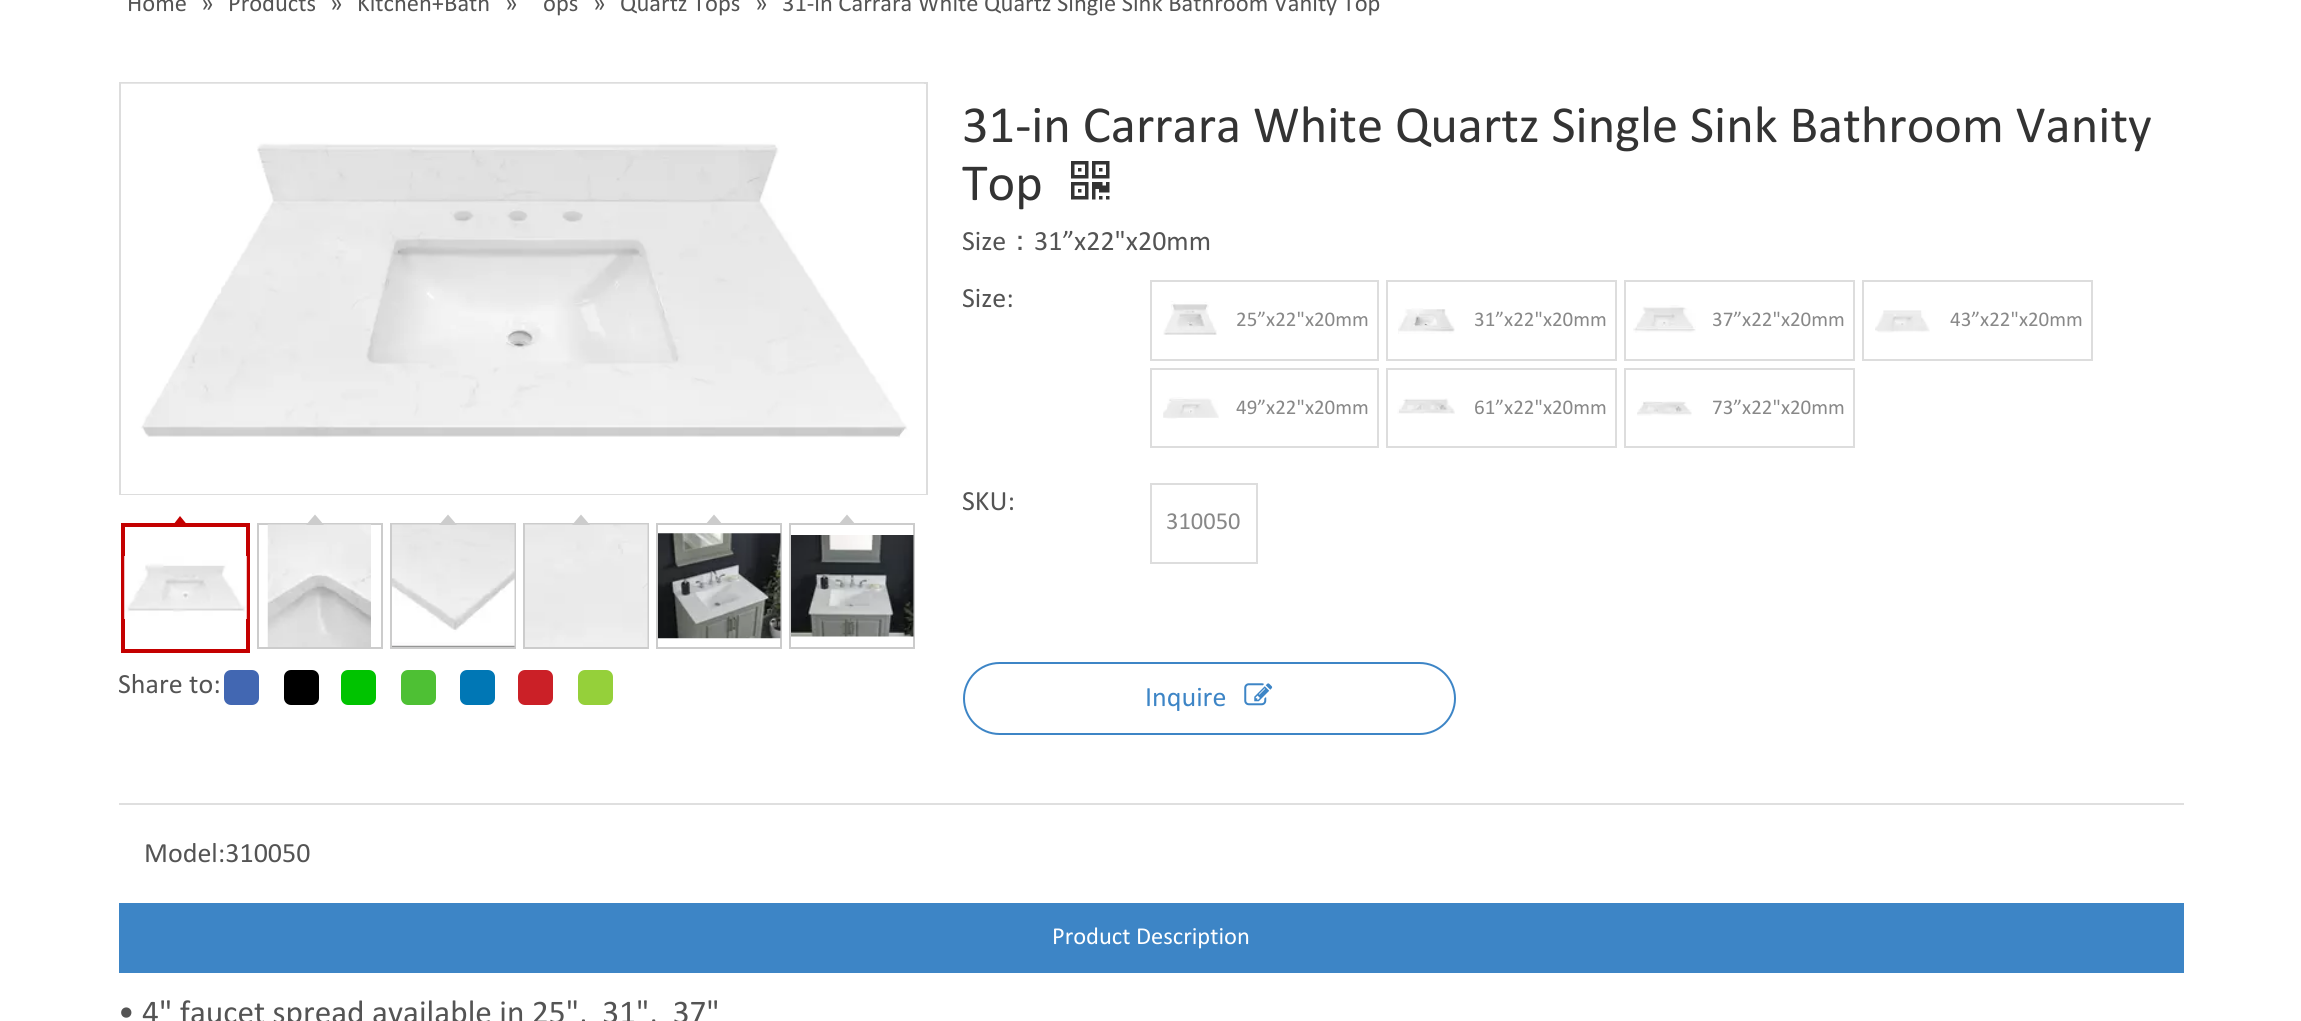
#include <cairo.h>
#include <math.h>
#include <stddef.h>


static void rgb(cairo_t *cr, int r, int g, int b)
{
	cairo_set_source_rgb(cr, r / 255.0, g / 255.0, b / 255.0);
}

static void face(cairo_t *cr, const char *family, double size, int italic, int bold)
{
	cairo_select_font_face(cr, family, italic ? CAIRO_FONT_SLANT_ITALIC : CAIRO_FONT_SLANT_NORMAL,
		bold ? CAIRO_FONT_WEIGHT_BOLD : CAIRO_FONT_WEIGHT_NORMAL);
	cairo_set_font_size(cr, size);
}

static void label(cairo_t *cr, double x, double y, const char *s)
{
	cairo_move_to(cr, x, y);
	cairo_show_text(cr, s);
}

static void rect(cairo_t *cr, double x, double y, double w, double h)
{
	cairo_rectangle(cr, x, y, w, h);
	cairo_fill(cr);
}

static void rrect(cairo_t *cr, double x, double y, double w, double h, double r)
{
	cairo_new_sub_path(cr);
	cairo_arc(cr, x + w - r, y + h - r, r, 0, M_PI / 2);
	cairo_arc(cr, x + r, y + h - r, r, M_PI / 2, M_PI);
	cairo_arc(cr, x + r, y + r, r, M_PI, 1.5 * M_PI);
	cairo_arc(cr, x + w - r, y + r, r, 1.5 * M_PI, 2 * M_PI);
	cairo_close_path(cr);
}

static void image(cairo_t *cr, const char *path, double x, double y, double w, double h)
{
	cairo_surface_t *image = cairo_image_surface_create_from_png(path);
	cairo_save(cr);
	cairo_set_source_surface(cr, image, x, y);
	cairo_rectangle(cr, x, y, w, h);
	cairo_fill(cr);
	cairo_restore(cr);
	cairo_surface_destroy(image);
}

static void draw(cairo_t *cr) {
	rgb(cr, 255, 255, 255);
	cairo_paint(cr);
	face(cr, "Calibri", 24.5, 0, 0);
	rgb(cr, 84, 84, 84);
	label(cr, 127, 11, "Home");
	label(cr, 201, 11, "»");
	label(cr, 228, 11, "Products");
	label(cr, 330, 11, "»");
	label(cr, 357, 11, "Kitchen+Bath");
	label(cr, 505, 11, "»");
	label(cr, 543, 11, "ops");
	label(cr, 593, 11, "»");
	label(cr, 620, 11, "Quartz Tops");
	label(cr, 755, 11, "»");
	label(cr, 782, 11, "31-in Carrara White Quartz Single Sink Bathroom Vanity Top");
	cairo_rectangle(cr, 120, 83, 807, 411);
	rgb(cr, 221, 221, 221);
	cairo_stroke(cr);
	rgb(cr, 255, 255, 255);
	rect(cr, 121, 493, 805, 1);
	image(cr, "image0.png", 121, 83, 803, 355);
	cairo_rectangle(cr, 123, 525, 125, 126);
	rgb(cr, 196, 0, 0);
	cairo_set_line_width(cr, 4);
	cairo_stroke(cr);
	cairo_new_path(cr);
	cairo_move_to(cr, 189, 527);
	cairo_line_to(cr, 171.5, 527);
	cairo_line_to(cr, 180, 516);
	cairo_close_path(cr);
	cairo_fill(cr);
	image(cr, "image1.png", 124, 556, 123, 63);
	cairo_rectangle(cr, 258, 524, 124, 124);
	rgb(cr, 204, 204, 204);
	cairo_set_line_width(cr, 2);
	cairo_stroke(cr);
	image(cr, "image2.png", 267, 524, 104, 123);
	cairo_new_path(cr);
	cairo_move_to(cr, 324, 525);
	cairo_line_to(cr, 306, 525);
	cairo_line_to(cr, 315, 514.5);
	cairo_close_path(cr);
	cairo_fill(cr);
	cairo_rectangle(cr, 391, 524, 124, 124);
	cairo_stroke(cr);
	image(cr, "image3.png", 392, 524, 123, 123);
	cairo_new_path(cr);
	cairo_move_to(cr, 457, 525);
	cairo_line_to(cr, 439, 525);
	cairo_line_to(cr, 448, 514.5);
	cairo_close_path(cr);
	cairo_fill(cr);
	cairo_rectangle(cr, 524, 524, 124, 124);
	cairo_stroke(cr);
	image(cr, "image4.png", 525, 524, 123, 123);
	cairo_new_path(cr);
	cairo_move_to(cr, 590, 525);
	cairo_line_to(cr, 572, 525);
	cairo_line_to(cr, 581, 514.5);
	cairo_close_path(cr);
	cairo_fill(cr);
	cairo_rectangle(cr, 657, 524, 124, 124);
	cairo_stroke(cr);
	cairo_new_path(cr);
	cairo_move_to(cr, 723, 525);
	cairo_line_to(cr, 705, 525);
	cairo_line_to(cr, 714, 514.5);
	cairo_close_path(cr);
	cairo_fill(cr);
	image(cr, "image5.png", 658, 533, 123, 106);
	cairo_rectangle(cr, 790, 524, 124, 124);
	cairo_stroke(cr);
	cairo_new_path(cr);
	cairo_move_to(cr, 856, 525);
	cairo_line_to(cr, 838, 525);
	cairo_line_to(cr, 847, 514.5);
	cairo_close_path(cr);
	cairo_fill(cr);
	image(cr, "image6.png", 791, 535, 123, 102);
	face(cr, "Calibri", 28, 0, 0);
	rgb(cr, 84, 84, 84);
	label(cr, 118, 693, "Share to:");
	rgb(cr, 66, 103, 178);
	rrect(cr, 224, 670, 35, 35, 7);
	cairo_fill(cr);
	rgb(cr, 0, 0, 0);
	rrect(cr, 284, 670, 35, 35, 7);
	cairo_fill(cr);
	rgb(cr, 0, 195, 0);
	rrect(cr, 341, 670, 35, 35, 7);
	cairo_fill(cr);
	rgb(cr, 78, 192, 52);
	rrect(cr, 401, 670, 35, 35, 7);
	cairo_fill(cr);
	rgb(cr, 0, 119, 181);
	rrect(cr, 460, 670, 35, 35, 7);
	cairo_fill(cr);
	rgb(cr, 203, 32, 39);
	rrect(cr, 518, 670, 35, 35, 7);
	cairo_fill(cr);
	rgb(cr, 149, 208, 58);
	rrect(cr, 578, 670, 35, 35, 7);
	cairo_fill(cr);
	face(cr, "Calibri", 52.5, 0, 0);
	rgb(cr, 51, 51, 51);
	label(cr, 962, 142, "31-in Carrara White Quartz Single Sink Bathroom Vanity");
	label(cr, 962, 200, "Top");
	image(cr, "image7.png", 1071, 161, 39, 39);
	face(cr, "Calibri", 28, 0, 0);
	rgb(cr, 84, 84, 84);
	label(cr, 962, 250, "Size");
	face(cr, "WenQuanYi Zen Hei Medium", 28, 0, 0);
	label(cr, 1006, 250, "：");
	face(cr, "Calibri", 28, 0, 0);
	label(cr, 1034, 250, "31”x22\"x20mm");
	label(cr, 962, 307, "Size:");
	cairo_rectangle(cr, 1151, 281, 227, 79);
	rgb(cr, 221, 221, 221);
	cairo_stroke(cr);
	image(cr, "image8.png", 1163, 301, 54, 34);
	face(cr, "Calibri", 21, 0, 0);
	rgb(cr, 136, 136, 136);
	label(cr, 1236, 326, "25”x22\"x20mm");
	cairo_rectangle(cr, 1387, 281, 229, 79);
	rgb(cr, 221, 221, 221);
	cairo_stroke(cr);
	image(cr, "image9.png", 1398, 308, 57, 26);
	rgb(cr, 136, 136, 136);
	label(cr, 1474, 326, "31”x22\"x20mm");
	cairo_rectangle(cr, 1625, 281, 229, 79);
	rgb(cr, 221, 221, 221);
	cairo_stroke(cr);
	image(cr, "image10.png", 1633, 305, 63, 28);
	rgb(cr, 136, 136, 136);
	label(cr, 1712, 326, "37”x22\"x20mm");
	cairo_rectangle(cr, 1863, 281, 229, 79);
	rgb(cr, 221, 221, 221);
	cairo_stroke(cr);
	image(cr, "image11.png", 1875, 310, 55, 23);
	rgb(cr, 136, 136, 136);
	label(cr, 1950, 326, "43”x22\"x20mm");
	cairo_rectangle(cr, 1151, 369, 227, 78);
	rgb(cr, 221, 221, 221);
	cairo_stroke(cr);
	image(cr, "image12.png", 1163, 397, 56, 22);
	rgb(cr, 136, 136, 136);
	label(cr, 1236, 414, "49”x22\"x20mm");
	cairo_rectangle(cr, 1387, 369, 229, 78);
	rgb(cr, 221, 221, 221);
	cairo_stroke(cr);
	image(cr, "image13.png", 1397, 398, 58, 16);
	rgb(cr, 136, 136, 136);
	label(cr, 1474, 414, "61”x22\"x20mm");
	cairo_rectangle(cr, 1625, 369, 229, 78);
	rgb(cr, 221, 221, 221);
	cairo_stroke(cr);
	image(cr, "image14.png", 1637, 401, 55, 15);
	rgb(cr, 136, 136, 136);
	label(cr, 1712, 414, "73”x22\"x20mm");
	face(cr, "Calibri", 28, 0, 0);
	rgb(cr, 84, 84, 84);
	label(cr, 962, 510, "SKU:");
	cairo_rectangle(cr, 1151, 484, 106, 79);
	rgb(cr, 221, 221, 221);
	cairo_stroke(cr);
	face(cr, "Calibri", 24.5, 0, 0);
	rgb(cr, 136, 136, 136);
	label(cr, 1166, 529, "310050");
	rrect(cr, 964, 663, 491, 71, 35.5);
	rgb(cr, 61, 133, 198);
	cairo_stroke(cr);
	face(cr, "Calibri", 28, 0, 0);
	label(cr, 1145, 706, "Inquire");
	image(cr, "image15.png", 1244, 683, 29, 23);
	rgb(cr, 223, 223, 223);
	rect(cr, 119, 803, 2065, 2);
	rgb(cr, 84, 84, 84);
	label(cr, 144, 862, "Model:310050");
	rgb(cr, 61, 133, 198);
	rect(cr, 119, 903, 2065, 70);
	face(cr, "Calibri", 24.5, 0, 0);
	rgb(cr, 255, 255, 255);
	label(cr, 1052, 944, "Product Description");
	face(cr, "Calibri", 33.25, 0, 0);
	rgb(cr, 84, 84, 84);
	label(cr, 118, 1023, "• 4\" faucet spread available in 25\",  31\",  37\"");
}

int main(void) {
	cairo_surface_t *surface = cairo_image_surface_create(CAIRO_FORMAT_RGB24, 2301, 1021);
	cairo_t *cr = cairo_create(surface);
	cairo_font_options_t *options = cairo_font_options_create();
	cairo_font_options_set_hint_metrics(options, CAIRO_HINT_METRICS_OFF);
	cairo_font_options_set_hint_style(options, CAIRO_HINT_STYLE_NONE);
	cairo_set_font_options(cr, options);
	cairo_set_miter_limit(cr, 4);
	draw(cr);
	cairo_surface_write_to_png(surface, "render.png");
	cairo_font_options_destroy(options);
	cairo_destroy(cr);
	cairo_surface_destroy(surface);
	return 0;
}
